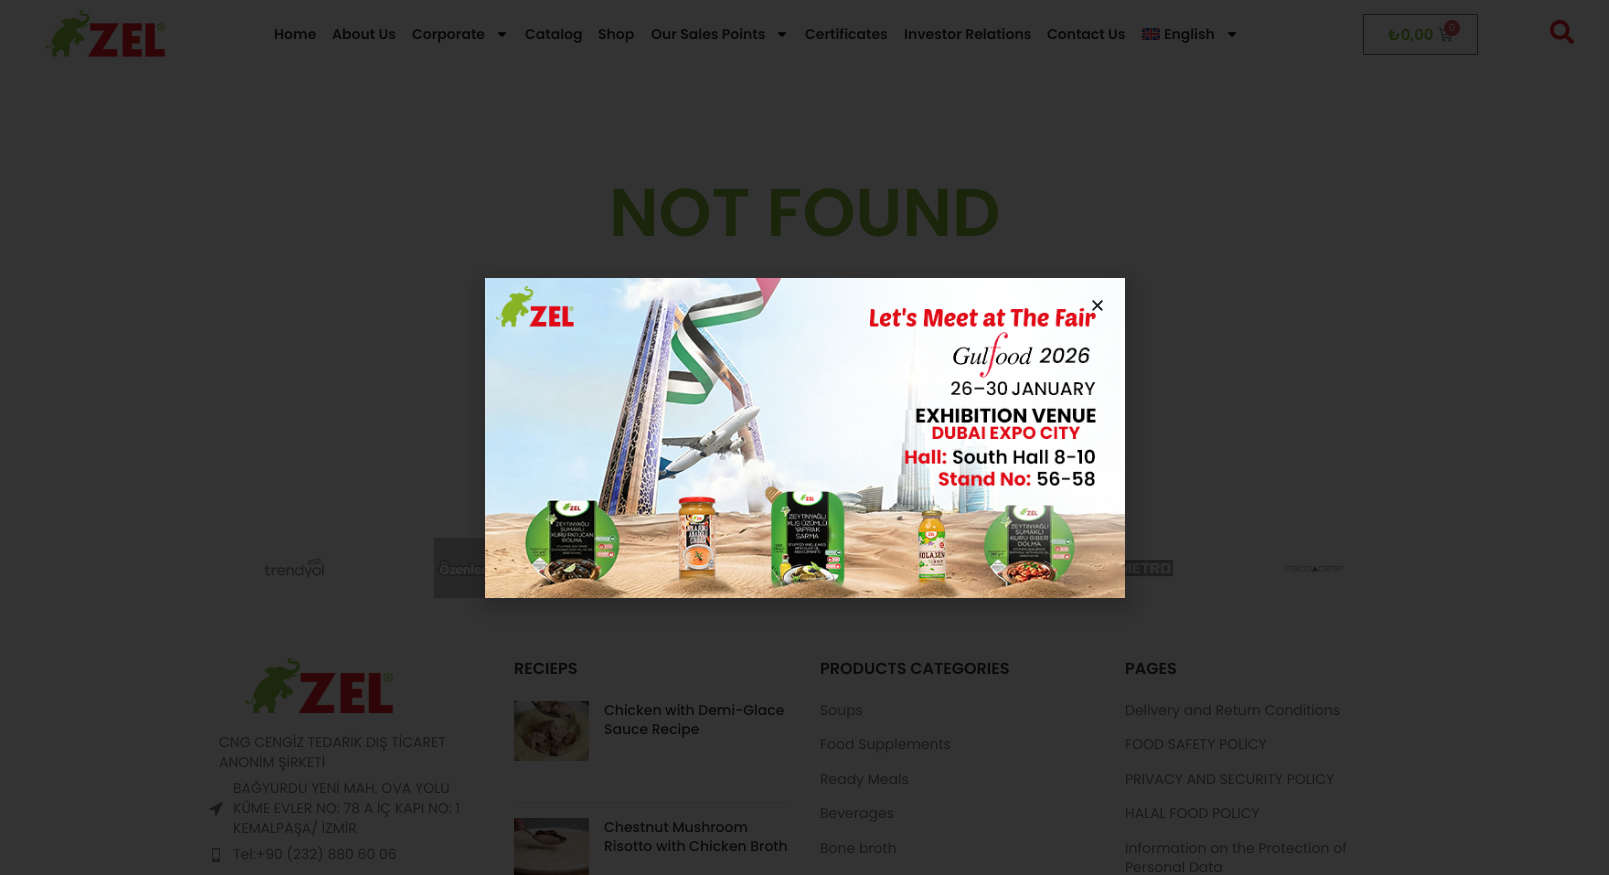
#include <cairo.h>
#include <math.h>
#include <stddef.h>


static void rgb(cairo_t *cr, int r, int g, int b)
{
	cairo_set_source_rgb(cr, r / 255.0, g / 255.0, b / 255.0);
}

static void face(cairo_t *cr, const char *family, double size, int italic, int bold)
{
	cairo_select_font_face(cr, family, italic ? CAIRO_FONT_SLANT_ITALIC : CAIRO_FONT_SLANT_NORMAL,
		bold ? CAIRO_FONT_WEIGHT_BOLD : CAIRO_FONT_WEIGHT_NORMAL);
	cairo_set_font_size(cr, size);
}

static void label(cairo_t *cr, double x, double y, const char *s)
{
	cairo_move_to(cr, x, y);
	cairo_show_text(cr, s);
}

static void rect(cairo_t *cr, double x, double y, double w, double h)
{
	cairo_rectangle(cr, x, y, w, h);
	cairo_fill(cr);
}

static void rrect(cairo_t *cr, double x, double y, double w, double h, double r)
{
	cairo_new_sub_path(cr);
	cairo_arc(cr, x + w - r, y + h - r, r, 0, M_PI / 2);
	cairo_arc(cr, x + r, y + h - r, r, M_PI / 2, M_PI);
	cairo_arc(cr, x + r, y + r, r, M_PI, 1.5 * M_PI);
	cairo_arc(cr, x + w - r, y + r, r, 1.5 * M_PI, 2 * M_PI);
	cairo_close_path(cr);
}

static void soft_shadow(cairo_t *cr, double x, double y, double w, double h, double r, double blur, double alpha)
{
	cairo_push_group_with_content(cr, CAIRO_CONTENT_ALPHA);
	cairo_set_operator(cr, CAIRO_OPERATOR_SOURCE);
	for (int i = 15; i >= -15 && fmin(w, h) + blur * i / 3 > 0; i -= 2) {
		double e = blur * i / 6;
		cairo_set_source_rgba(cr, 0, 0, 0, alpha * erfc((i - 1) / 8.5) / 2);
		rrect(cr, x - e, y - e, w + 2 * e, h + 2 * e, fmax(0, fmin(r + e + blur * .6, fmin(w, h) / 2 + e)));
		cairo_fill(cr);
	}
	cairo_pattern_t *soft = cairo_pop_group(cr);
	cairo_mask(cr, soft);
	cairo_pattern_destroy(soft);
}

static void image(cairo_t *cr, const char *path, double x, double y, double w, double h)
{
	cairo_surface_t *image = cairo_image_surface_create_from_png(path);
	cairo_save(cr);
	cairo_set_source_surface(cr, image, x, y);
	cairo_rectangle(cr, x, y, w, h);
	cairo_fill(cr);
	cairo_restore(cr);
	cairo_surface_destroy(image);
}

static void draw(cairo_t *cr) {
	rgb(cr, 51, 51, 51);
	cairo_paint(cr);
	image(cr, "image0.png", 44, 8, 122, 53);
	face(cr, "Poppins SemiBold", 14, 0, 0);
	rgb(cr, 10, 10, 10);
	label(cr, 274, 39, "Home");
	label(cr, 332, 39, "About Us");
	label(cr, 412, 39, "Corporate");
	image(cr, "image1.png", 498, 32, 8, 5);
	label(cr, 525, 39, "Catalog");
	label(cr, 598, 39, "Shop");
	label(cr, 651, 39, "Our Sales Points");
	image(cr, "image1.png", 778, 32, 8, 5);
	label(cr, 805, 39, "Certificates");
	label(cr, 904, 39, "Investor Relations");
	label(cr, 1047, 39, "Contact Us");
	image(cr, "image2.png", 1142, 28, 18, 12);
	label(cr, 1164, 39, "English");
	image(cr, "image1.png", 1228, 32, 8, 5);
	cairo_rectangle(cr, 1363.5, 14.5, 114, 40);
	rgb(cr, 21, 23, 25);
	cairo_set_line_width(cr, 1);
	cairo_stroke(cr);
	image(cr, "image3.png", 1438, 27, 14, 15);
	rgb(cr, 43, 17, 16);
	cairo_arc(cr, 1452, 28, 8, 0, 2 * M_PI);
	cairo_fill(cr);
	face(cr, "Poppins", 10, 0, 0);
	rgb(cr, 51, 51, 51);
	label(cr, 1449, 31, "0");
	face(cr, "Poppins SemiBold", 15, 0, 0);
	rgb(cr, 26, 37, 11);
	label(cr, 1388, 40, "₺0,00");
	image(cr, "image4.png", 1550, 20, 24, 24);
	face(cr, "Poppins SemiBold", 67.5, 0, 0);
	label(cr, 609, 236, "NOT FOUND");
	image(cr, "image5.png", 264, 558, 60, 20);
	image(cr, "image6.png", 434, 538, 51, 60);
	image(cr, "image7.png", 1125, 560, 48, 17);
	image(cr, "image8.png", 1285, 564, 60, 8);
	image(cr, "image9.png", 244, 658, 150, 55);
	face(cr, "Poppins", 14, 0, 0);
	rgb(cr, 24, 24, 24);
	label(cr, 219, 747, "CNG CENGİZ TEDARİK DIŞ TİCARET");
	label(cr, 219, 767, "ANONİM ŞİRKETİ");
	image(cr, "image10.png", 209, 802, 14, 14);
	label(cr, 233, 793, "BAĞYURDU YENİ MAH. OVA YOLU");
	label(cr, 233, 813, "KÜME EVLER NO: 78 A İÇ KAPI NO: 1");
	label(cr, 233, 833, "KEMALPAŞA/ İZMİR");
	image(cr, "image11.png", 212, 848, 8, 14);
	label(cr, 233, 859, "Tel:+90 (232) 880 60 06");
	face(cr, "Poppins SemiBold", 16, 0, 0);
	rgb(cr, 10, 10, 10);
	label(cr, 514, 674, "RECIEPS");
	rgb(cr, 46, 46, 46);
	rect(cr, 514, 802, 276, 1);
	image(cr, "image12.png", 514, 701, 75, 60);
	face(cr, "Poppins Medium", 14, 0, 0);
	rgb(cr, 10, 10, 10);
	label(cr, 604, 715, "Chicken with Demi-Glace");
	label(cr, 604, 734, "Sauce Recipe");
	image(cr, "image13.png", 514, 818, 75, 57);
	label(cr, 604, 832, "Chestnut Mushroom");
	label(cr, 604, 851, "Risotto with Chicken Broth");
	face(cr, "Poppins SemiBold", 16, 0, 0);
	label(cr, 820, 674, "PRODUCTS CATEGORIES");
	face(cr, "Poppins", 14, 0, 0);
	rgb(cr, 24, 24, 24);
	label(cr, 820, 715, "Soups");
	label(cr, 820, 749, "Food Supplements");
	label(cr, 820, 784, "Ready Meals");
	label(cr, 820, 818, "Beverages");
	label(cr, 820, 853, "Bone broth");
	face(cr, "Poppins SemiBold", 16, 0, 0);
	rgb(cr, 10, 10, 10);
	label(cr, 1125, 674, "PAGES");
	face(cr, "Poppins", 14, 0, 0);
	rgb(cr, 24, 24, 24);
	label(cr, 1125, 715, "Delivery and Return Conditions");
	label(cr, 1125, 749, "FOOD SAFETY POLICY");
	label(cr, 1125, 784, "PRIVACY AND SECURITY POLICY");
	label(cr, 1125, 818, "HALAL FOOD POLICY");
	label(cr, 1125, 853, "Information on the Protection of");
	label(cr, 1125, 872, "Personal Data");
	rgb(cr, 0, 0, 0);
	soft_shadow(cr, 484, 283, 646, 326, 0, 11.5, 0.2);
	image(cr, "image14.png", 485, 278, 640, 320);
	image(cr, "image15.png", 1092, 300, 11, 11);
}

int main(void) {
	cairo_surface_t *surface = cairo_image_surface_create(CAIRO_FORMAT_RGB24, 1609, 875);
	cairo_t *cr = cairo_create(surface);
	cairo_font_options_t *options = cairo_font_options_create();
	cairo_font_options_set_hint_metrics(options, CAIRO_HINT_METRICS_OFF);
	cairo_font_options_set_hint_style(options, CAIRO_HINT_STYLE_NONE);
	cairo_set_font_options(cr, options);
	cairo_set_miter_limit(cr, 4);
	draw(cr);
	cairo_surface_write_to_png(surface, "render.png");
	cairo_font_options_destroy(options);
	cairo_destroy(cr);
	cairo_surface_destroy(surface);
	return 0;
}
